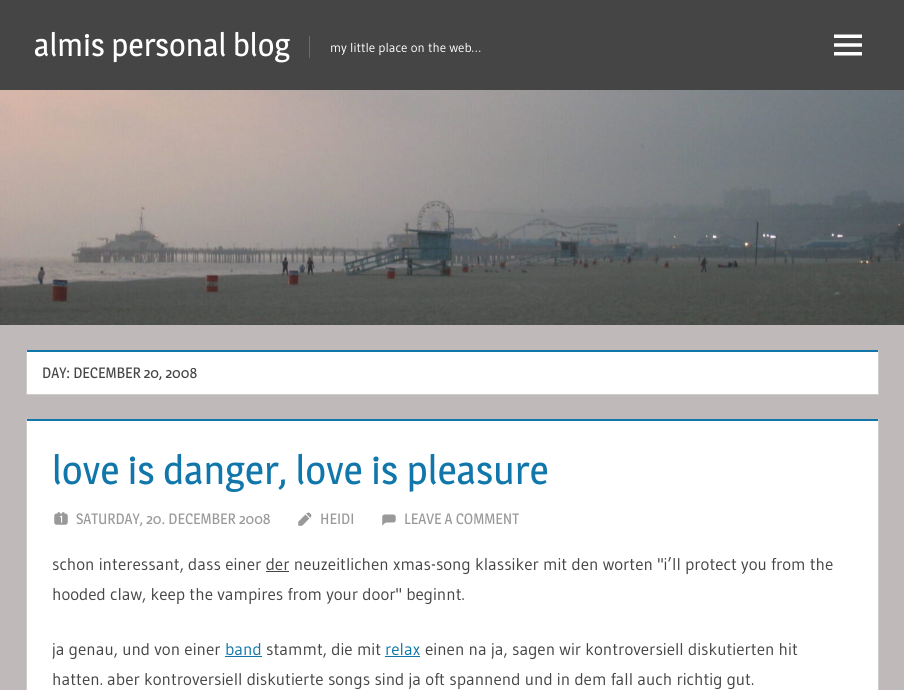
#include <cairo.h>
#include <math.h>
#include <stddef.h>


static void rgb(cairo_t *cr, int r, int g, int b)
{
	cairo_set_source_rgb(cr, r / 255.0, g / 255.0, b / 255.0);
}

static void face(cairo_t *cr, const char *family, double size, int italic, int bold)
{
	cairo_select_font_face(cr, family, italic ? CAIRO_FONT_SLANT_ITALIC : CAIRO_FONT_SLANT_NORMAL,
		bold ? CAIRO_FONT_WEIGHT_BOLD : CAIRO_FONT_WEIGHT_NORMAL);
	cairo_set_font_size(cr, size);
}

static void label(cairo_t *cr, double x, double y, const char *s)
{
	cairo_move_to(cr, x, y);
	cairo_show_text(cr, s);
}

static void rect(cairo_t *cr, double x, double y, double w, double h)
{
	cairo_rectangle(cr, x, y, w, h);
	cairo_fill(cr);
}

static void image(cairo_t *cr, const char *path, double x, double y, double w, double h)
{
	cairo_surface_t *image = cairo_image_surface_create_from_png(path);
	cairo_save(cr);
	cairo_set_source_surface(cr, image, x, y);
	cairo_rectangle(cr, x, y, w, h);
	cairo_fill(cr);
	cairo_restore(cr);
	cairo_surface_destroy(image);
}

static void draw(cairo_t *cr) {
	rgb(cr, 191, 186, 185);
	cairo_paint(cr);
	rgb(cr, 69, 69, 69);
	rect(cr, 0, 0, 904, 90);
	face(cr, "Magra", 32, 0, 0);
	rgb(cr, 255, 255, 255);
	label(cr, 34, 56, "almis personal blog");
	rgb(cr, 106, 106, 106);
	rect(cr, 309, 36, 1, 22);
	face(cr, "Gudea", 13, 0, 0);
	rgb(cr, 255, 255, 255);
	label(cr, 330, 52, "my little place on the web…");
	image(cr, "image0.png", 834, 34, 28, 22);
	image(cr, "image1.png", 0, 90, 904, 235);
	rect(cr, 26, 350, 853, 45);
	rgb(cr, 204, 204, 204);
	cairo_new_path(cr);
	cairo_move_to(cr, 879, 350);
	cairo_line_to(cr, 879, 395);
	cairo_line_to(cr, 878, 394);
	cairo_line_to(cr, 878, 350);
	cairo_close_path(cr);
	cairo_fill(cr);
	cairo_set_source_rgba(cr, 0, 0, 0, 0.2);
	cairo_new_path(cr);
	cairo_move_to(cr, 879, 395);
	cairo_line_to(cr, 26, 395);
	cairo_line_to(cr, 27, 394);
	cairo_line_to(cr, 878, 394);
	cairo_close_path(cr);
	cairo_fill(cr);
	cairo_new_path(cr);
	cairo_move_to(cr, 26, 395);
	cairo_line_to(cr, 26, 350);
	cairo_line_to(cr, 27, 350);
	cairo_line_to(cr, 27, 394);
	cairo_close_path(cr);
	cairo_fill(cr);
	rgb(cr, 17, 119, 170);
	rect(cr, 27, 350, 851, 2);
	face(cr, "Magra", 15, 0, 0);
	rgb(cr, 69, 69, 69);
	label(cr, 42, 378, "DAY: DECEMBER 20, 2008");
	rgb(cr, 255, 255, 255);
	rect(cr, 27, 421, 851, 269);
	rgb(cr, 17, 119, 170);
	rect(cr, 27, 419, 851, 2);
	rgb(cr, 204, 204, 204);
	cairo_new_path(cr);
	cairo_move_to(cr, 879, 419);
	cairo_line_to(cr, 879, 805);
	cairo_line_to(cr, 878, 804);
	cairo_line_to(cr, 878, 419);
	cairo_close_path(cr);
	cairo_fill(cr);
	cairo_new_path(cr);
	cairo_move_to(cr, 26, 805);
	cairo_line_to(cr, 26, 419);
	cairo_line_to(cr, 27, 419);
	cairo_line_to(cr, 27, 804);
	cairo_close_path(cr);
	cairo_fill(cr);
	face(cr, "Magra", 40, 0, 0);
	rgb(cr, 17, 119, 170);
	label(cr, 52, 484, "love is danger, love is pleasure");
	image(cr, "image2.png", 54, 512, 14, 13);
	face(cr, "Magra", 15, 0, 0);
	rgb(cr, 153, 153, 153);
	label(cr, 76, 524, "SATURDAY, 20. DECEMBER 2008");
	image(cr, "image3.png", 298, 512, 14, 14);
	label(cr, 320, 524, "HEIDI");
	image(cr, "image4.png", 382, 514, 14, 12);
	label(cr, 404, 524, "LEAVE A COMMENT");
	face(cr, "Gudea", 17, 0, 0);
	rgb(cr, 69, 69, 69);
	label(cr, 52, 570, "schon interessant, dass einer der neuzeitlichen xmas-song klassiker mit den worten \"i’ll protect you from the");
	rect(cr, 266, 571, 23, 1);
	label(cr, 52, 600, "hooded claw, keep the vampires from your door\" beginnt.");
	label(cr, 52, 655, "ja genau, und von einer");
	rgb(cr, 17, 119, 170);
	label(cr, 225, 655, "band");
	rect(cr, 225, 656, 37, 1);
	rgb(cr, 69, 69, 69);
	label(cr, 266, 655, "stammt, die mit");
	rgb(cr, 17, 119, 170);
	label(cr, 385, 655, "relax");
	rect(cr, 385, 656, 35, 1);
	rgb(cr, 69, 69, 69);
	label(cr, 425, 655, "einen na ja, sagen wir kontroversiell diskutierten hit");
	label(cr, 52, 685, "hatten. aber kontroversiell diskutierte songs sind ja oft spannend und in dem fall auch richtig gut.");
}

int main(void) {
	cairo_surface_t *surface = cairo_image_surface_create(CAIRO_FORMAT_RGB24, 904, 690);
	cairo_t *cr = cairo_create(surface);
	cairo_font_options_t *options = cairo_font_options_create();
	cairo_font_options_set_hint_metrics(options, CAIRO_HINT_METRICS_OFF);
	cairo_font_options_set_hint_style(options, CAIRO_HINT_STYLE_NONE);
	cairo_set_font_options(cr, options);
	cairo_set_miter_limit(cr, 4);
	draw(cr);
	cairo_surface_write_to_png(surface, "render.png");
	cairo_font_options_destroy(options);
	cairo_destroy(cr);
	cairo_surface_destroy(surface);
	return 0;
}
